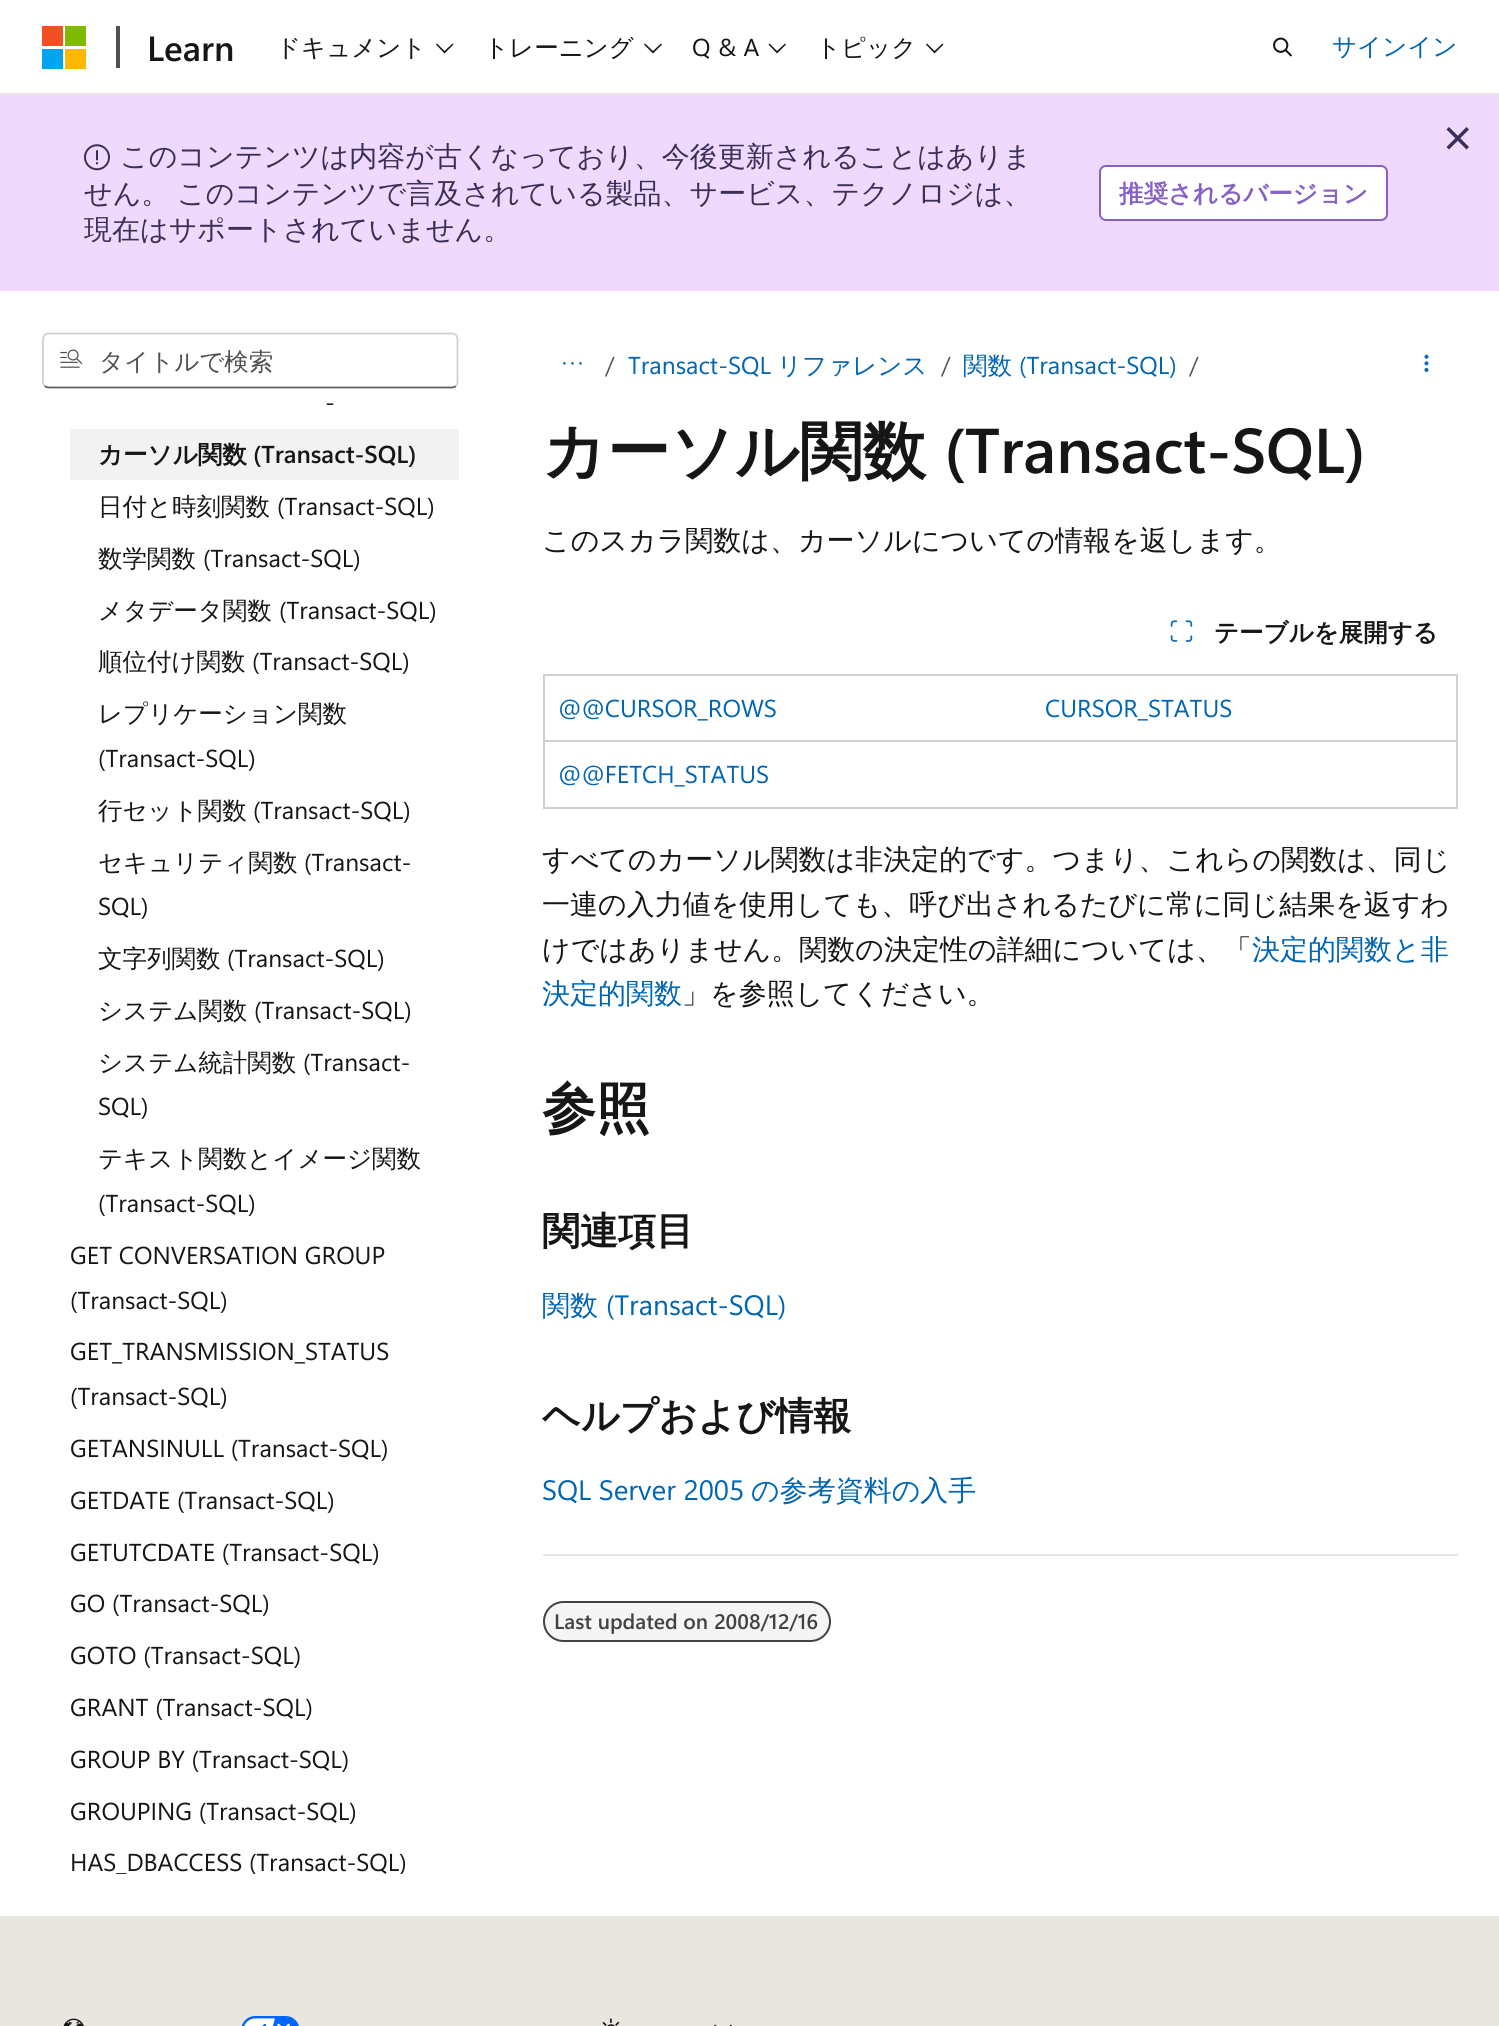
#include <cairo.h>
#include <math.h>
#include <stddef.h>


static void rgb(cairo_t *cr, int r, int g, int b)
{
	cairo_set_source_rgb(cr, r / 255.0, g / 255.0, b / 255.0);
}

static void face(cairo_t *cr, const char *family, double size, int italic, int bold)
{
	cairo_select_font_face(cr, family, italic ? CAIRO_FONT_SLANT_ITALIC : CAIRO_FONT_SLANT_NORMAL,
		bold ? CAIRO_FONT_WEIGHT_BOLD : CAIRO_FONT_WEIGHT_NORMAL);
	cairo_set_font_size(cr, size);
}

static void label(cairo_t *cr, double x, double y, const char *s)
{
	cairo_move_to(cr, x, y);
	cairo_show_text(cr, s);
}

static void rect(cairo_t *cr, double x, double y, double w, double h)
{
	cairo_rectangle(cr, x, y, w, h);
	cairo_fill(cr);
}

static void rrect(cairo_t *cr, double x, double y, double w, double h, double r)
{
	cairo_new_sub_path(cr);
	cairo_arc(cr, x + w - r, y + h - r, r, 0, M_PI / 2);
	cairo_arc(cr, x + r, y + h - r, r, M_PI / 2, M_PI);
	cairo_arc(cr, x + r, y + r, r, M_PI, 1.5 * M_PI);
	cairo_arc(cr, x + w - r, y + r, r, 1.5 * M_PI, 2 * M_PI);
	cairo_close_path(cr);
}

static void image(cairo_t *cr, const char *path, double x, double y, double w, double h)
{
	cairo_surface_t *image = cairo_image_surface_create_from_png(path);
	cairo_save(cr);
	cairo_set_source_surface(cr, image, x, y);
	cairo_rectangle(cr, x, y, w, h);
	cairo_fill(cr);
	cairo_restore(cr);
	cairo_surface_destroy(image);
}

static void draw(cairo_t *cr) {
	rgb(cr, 255, 255, 255);
	cairo_paint(cr);
	rgb(cr, 230, 230, 230);
	rect(cr, 0, 93, 1499, 2);
	rgb(cr, 242, 80, 34);
	rect(cr, 42, 26, 21, 20);
	rgb(cr, 127, 186, 0);
	rect(cr, 65, 26, 21, 20);
	rgb(cr, 0, 164, 239);
	rect(cr, 42, 49, 21, 20);
	rgb(cr, 255, 185, 0);
	rect(cr, 65, 49, 21, 20);
	rgb(cr, 80, 80, 80);
	rect(cr, 116, 26, 4, 42);
	face(cr, "Segoe UI SemiBold", 35, 0, 0);
	rgb(cr, 22, 22, 22);
	label(cr, 147, 61, "Learn");
	face(cr, "WenQuanYi Zen Hei Medium", 24.5, 0, 0);
	label(cr, 276, 56, "ドキュメント");
	cairo_new_path(cr);
	cairo_move_to(cr, 444.5, 53.5);
	cairo_line_to(cr, 436, 44.5);
	cairo_line_to(cr, 437, 43.5);
	cairo_line_to(cr, 444.5, 51);
	cairo_line_to(cr, 452.5, 43.5);
	cairo_line_to(cr, 453.5, 44.5);
	cairo_close_path(cr);
	cairo_fill(cr);
	label(cr, 484, 56, "トレーニング");
	cairo_new_path(cr);
	cairo_move_to(cr, 653, 53.5);
	cairo_line_to(cr, 644, 44.5);
	cairo_line_to(cr, 645, 43.5);
	cairo_line_to(cr, 653, 51);
	cairo_line_to(cr, 661, 43.5);
	cairo_line_to(cr, 662, 44.5);
	cairo_close_path(cr);
	cairo_fill(cr);
	face(cr, "Segoe UI", 24.5, 0, 0);
	label(cr, 692, 56, "Q & A");
	cairo_new_path(cr);
	cairo_move_to(cr, 777, 53.5);
	cairo_line_to(cr, 768.5, 44.5);
	cairo_line_to(cr, 769.5, 43.5);
	cairo_line_to(cr, 777, 51);
	cairo_line_to(cr, 785, 43.5);
	cairo_line_to(cr, 786, 44.5);
	cairo_close_path(cr);
	cairo_fill(cr);
	face(cr, "WenQuanYi Zen Hei Medium", 24.5, 0, 0);
	label(cr, 816, 56, "トピック");
	cairo_new_path(cr);
	cairo_move_to(cr, 934.5, 53.5);
	cairo_line_to(cr, 926, 44.5);
	cairo_line_to(cr, 927, 43.5);
	cairo_line_to(cr, 934.5, 51);
	cairo_line_to(cr, 942.5, 43.5);
	cairo_line_to(cr, 943.5, 44.5);
	cairo_close_path(cr);
	cairo_fill(cr);
	image(cr, "image0.png", 1273, 37, 19, 20);
	rgb(cr, 0, 101, 179);
	label(cr, 1332, 55, "サインイン");
	rgb(cr, 239, 217, 253);
	rect(cr, 0, 95, 1499, 196);
	rgb(cr, 59, 46, 88);
	cairo_new_path(cr);
	cairo_move_to(cr, 1449, 127);
	cairo_line_to(cr, 1469, 147);
	cairo_line_to(cr, 1466.5, 149.5);
	cairo_line_to(cr, 1446.5, 129.5);
	cairo_close_path(cr);
	cairo_fill(cr);
	cairo_new_path(cr);
	cairo_move_to(cr, 1466.5, 127);
	cairo_line_to(cr, 1469, 129.5);
	cairo_line_to(cr, 1449, 149.5);
	cairo_line_to(cr, 1446.5, 147);
	cairo_close_path(cr);
	cairo_fill(cr);
	image(cr, "image1.png", 84, 144, 26, 27);
	face(cr, "WenQuanYi Zen Hei Medium", 28, 0, 0);
	label(cr, 120, 166, "このコンテンツは内容が古くなっており、今後更新されることはありま");
	label(cr, 84, 203, "せん。");
	label(cr, 177, 203, "このコンテンツで言及されている製品、サービス、テクノロジは、");
	label(cr, 84, 239, "現在はサポートされていません。");
	rgb(cr, 255, 255, 255);
	rrect(cr, 1100, 166, 287, 54, 6);
	cairo_fill_preserve(cr);
	rgb(cr, 134, 97, 197);
	cairo_stroke(cr);
	face(cr, "WenQuanYi Zen Hei", 24.5, 0, 1);
	label(cr, 1119, 202, "推奨されるバージョン");
	cairo_new_path(cr);
	cairo_move_to(cr, 456, 386);
	cairo_curve_to(cr, 454.5, 387, 453, 387.5, 451.5, 387.5);
	cairo_line_to(cr, 49, 387.5);
	cairo_curve_to(cr, 47.5, 387.5, 46, 387, 44.5, 386);
	rgb(cr, 97, 97, 97);
	cairo_set_line_width(cr, 1.8);
	cairo_stroke(cr);
	cairo_new_path(cr);
	cairo_move_to(cr, 44.5, 386);
	cairo_curve_to(cr, 43.5, 384.5, 43, 383, 43, 381.5);
	cairo_line_to(cr, 43, 339.5);
	cairo_curve_to(cr, 43, 338, 43.5, 336.5, 44.5, 335);
	cairo_curve_to(cr, 46, 334, 47.5, 333.5, 49, 333.5);
	cairo_line_to(cr, 451.5, 333.5);
	cairo_curve_to(cr, 453, 333.5, 454.5, 334, 456, 335);
	cairo_curve_to(cr, 457, 336.5, 457.5, 338, 457.5, 339.5);
	cairo_line_to(cr, 457.5, 381.5);
	cairo_curve_to(cr, 457.5, 383, 457, 384.5, 456, 386);
	rgb(cr, 209, 209, 209);
	cairo_stroke(cr);
	image(cr, "image2.png", 60, 349, 23, 19);
	face(cr, "WenQuanYi Zen Hei Medium", 24.5, 0, 0);
	rgb(cr, 80, 80, 80);
	label(cr, 99, 370, "タイトルで検索");
	face(cr, "Segoe UI", 24.5, 0, 0);
	rgb(cr, 22, 22, 22);
	label(cr, 325, 411, "-");
	rgb(cr, 242, 242, 242);
	rect(cr, 70, 429, 389, 51);
	face(cr, "WenQuanYi Zen Hei", 24.5, 0, 1);
	rgb(cr, 22, 22, 22);
	label(cr, 98, 463, "カーソル関数");
	face(cr, "Segoe UI SemiBold", 24.5, 0, 0);
	label(cr, 253, 463, "(Transact-SQL)");
	face(cr, "WenQuanYi Zen Hei Medium", 24.5, 0, 0);
	label(cr, 98, 515, "日付と時刻関数");
	face(cr, "Segoe UI", 24.5, 0, 0);
	label(cr, 277, 515, "(Transact-SQL)");
	face(cr, "WenQuanYi Zen Hei Medium", 24.5, 0, 0);
	label(cr, 98, 567, "数学関数");
	face(cr, "Segoe UI", 24.5, 0, 0);
	label(cr, 203, 567, "(Transact-SQL)");
	face(cr, "WenQuanYi Zen Hei Medium", 24.5, 0, 0);
	label(cr, 98, 619, "メタデータ関数");
	face(cr, "Segoe UI", 24.5, 0, 0);
	label(cr, 279, 619, "(Transact-SQL)");
	face(cr, "WenQuanYi Zen Hei Medium", 24.5, 0, 0);
	label(cr, 98, 670, "順位付け関数");
	face(cr, "Segoe UI", 24.5, 0, 0);
	label(cr, 252, 670, "(Transact-SQL)");
	face(cr, "WenQuanYi Zen Hei Medium", 24.5, 0, 0);
	label(cr, 98, 722, "レプリケーション関数");
	face(cr, "Segoe UI", 24.5, 0, 0);
	label(cr, 98, 767, "(Transact-SQL)");
	face(cr, "WenQuanYi Zen Hei Medium", 24.5, 0, 0);
	label(cr, 98, 819, "行セット関数");
	face(cr, "Segoe UI", 24.5, 0, 0);
	label(cr, 253, 819, "(Transact-SQL)");
	face(cr, "WenQuanYi Zen Hei Medium", 24.5, 0, 0);
	label(cr, 98, 871, "セキュリティ関数");
	face(cr, "Segoe UI", 24.5, 0, 0);
	label(cr, 304, 871, "(Transact-");
	label(cr, 98, 915, "SQL)");
	face(cr, "WenQuanYi Zen Hei Medium", 24.5, 0, 0);
	label(cr, 98, 967, "文字列関数");
	face(cr, "Segoe UI", 24.5, 0, 0);
	label(cr, 227, 967, "(Transact-SQL)");
	face(cr, "WenQuanYi Zen Hei Medium", 24.5, 0, 0);
	label(cr, 98, 1019, "システム関数");
	face(cr, "Segoe UI", 24.5, 0, 0);
	label(cr, 254, 1019, "(Transact-SQL)");
	face(cr, "WenQuanYi Zen Hei Medium", 24.5, 0, 0);
	label(cr, 98, 1071, "システム統計関数");
	face(cr, "Segoe UI", 24.5, 0, 0);
	label(cr, 303, 1071, "(Transact-");
	label(cr, 98, 1115, "SQL)");
	face(cr, "WenQuanYi Zen Hei Medium", 24.5, 0, 0);
	label(cr, 98, 1167, "テキスト関数とイメージ関数");
	face(cr, "Segoe UI", 24.5, 0, 0);
	label(cr, 98, 1212, "(Transact-SQL)");
	label(cr, 70, 1264, "GET CONVERSATION GROUP");
	label(cr, 70, 1309, "(Transact-SQL)");
	label(cr, 70, 1360, "GET_TRANSMISSION_STATUS");
	label(cr, 70, 1405, "(Transact-SQL)");
	label(cr, 70, 1457, "GETANSINULL (Transact-SQL)");
	label(cr, 70, 1509, "GETDATE (Transact-SQL)");
	label(cr, 70, 1561, "GETUTCDATE (Transact-SQL)");
	label(cr, 70, 1612, "GO (Transact-SQL)");
	label(cr, 70, 1664, "GOTO (Transact-SQL)");
	label(cr, 70, 1716, "GRANT (Transact-SQL)");
	label(cr, 70, 1768, "GROUP BY (Transact-SQL)");
	label(cr, 70, 1820, "GROUPING (Transact-SQL)");
	cairo_save(cr);
	cairo_rectangle(cr, 42, 403, 417, 1471);
	cairo_clip(cr);
	label(cr, 70, 1871, "HAS_DBACCESS (Transact-SQL)");
	cairo_restore(cr);
	image(cr, "image3.png", 563, 362, 19, 3);
	rgb(cr, 80, 80, 80);
	label(cr, 605, 374, "/");
	rgb(cr, 0, 101, 179);
	label(cr, 628, 374, "Transact-SQL");
	face(cr, "WenQuanYi Zen Hei Medium", 24.5, 0, 0);
	label(cr, 777, 374, "リファレンス");
	face(cr, "Segoe UI", 24.5, 0, 0);
	rgb(cr, 80, 80, 80);
	label(cr, 941, 374, "/");
	face(cr, "WenQuanYi Zen Hei Medium", 24.5, 0, 0);
	rgb(cr, 0, 101, 179);
	label(cr, 963, 374, "関数");
	face(cr, "Segoe UI", 24.5, 0, 0);
	label(cr, 1019, 374, "(Transact-SQL)");
	rgb(cr, 80, 80, 80);
	label(cr, 1189, 374, "/");
	image(cr, "image4.png", 1424, 354, 5, 18);
	face(cr, "WenQuanYi Zen Hei", 63.25, 0, 1);
	rgb(cr, 22, 22, 22);
	label(cr, 542, 473, "カーソル関数");
	face(cr, "Segoe UI SemiBold", 63.25, 0, 0);
	label(cr, 944, 473, "(Transact-SQL)");
	face(cr, "WenQuanYi Zen Hei Medium", 28, 0, 0);
	label(cr, 542, 550, "このスカラ関数は、カーソルについての情報を返します。");
	image(cr, "image5.png", 1170, 620, 23, 22);
	face(cr, "WenQuanYi Zen Hei", 24.5, 0, 1);
	label(cr, 1214, 641, "テーブルを展開する");
	rgb(cr, 209, 209, 209);
	rect(cr, 543, 674, 915, 2);
	rect(cr, 1456, 674, 2, 135);
	rect(cr, 543, 807, 915, 2);
	rect(cr, 543, 674, 2, 135);
	face(cr, "Segoe UI", 24.5, 0, 0);
	rgb(cr, 0, 101, 179);
	label(cr, 558, 717, "@@CURSOR_ROWS");
	label(cr, 1045, 717, "CURSOR_STATUS");
	rgb(cr, 209, 209, 209);
	rect(cr, 543, 740, 915, 2);
	rgb(cr, 0, 101, 179);
	label(cr, 558, 783, "@@FETCH_STATUS");
	face(cr, "WenQuanYi Zen Hei Medium", 28, 0, 0);
	rgb(cr, 22, 22, 22);
	label(cr, 542, 869, "すべてのカーソル関数は非決定的です。つまり、これらの関数は、同じ");
	label(cr, 542, 914, "一連の入力値を使用しても、呼び出されるたびに常に同じ結果を返すわ");
	label(cr, 542, 959, "けではありません。関数の決定性の詳細については、「");
	rgb(cr, 0, 101, 179);
	label(cr, 1252, 959, "決定的関数と非");
	label(cr, 542, 1003, "決定的関数");
	rgb(cr, 22, 22, 22);
	label(cr, 682, 1003, "」を参照してください。");
	face(cr, "WenQuanYi Zen Hei", 54, 0, 1);
	label(cr, 542, 1127, "参照");
	face(cr, "WenQuanYi Zen Hei", 38, 0, 1);
	label(cr, 542, 1244, "関連項目");
	face(cr, "WenQuanYi Zen Hei Medium", 28, 0, 0);
	rgb(cr, 0, 101, 179);
	label(cr, 542, 1315, "関数");
	face(cr, "Segoe UI", 28, 0, 0);
	label(cr, 606, 1315, "(Transact-SQL)");
	face(cr, "WenQuanYi Zen Hei", 38, 0, 1);
	rgb(cr, 22, 22, 22);
	label(cr, 542, 1429, "ヘルプおよび情報");
	face(cr, "Segoe UI", 28, 0, 0);
	rgb(cr, 0, 101, 179);
	label(cr, 542, 1500, "SQL Server 2005");
	face(cr, "WenQuanYi Zen Hei Medium", 28, 0, 0);
	label(cr, 751, 1500, "の参考資料の入手");
	rgb(cr, 230, 230, 230);
	rect(cr, 543, 1554, 915, 2);
	rgb(cr, 245, 245, 245);
	rrect(cr, 544, 1602, 286, 39, 19.5);
	cairo_fill_preserve(cr);
	rgb(cr, 66, 66, 66);
	cairo_set_line_width(cr, 2);
	cairo_stroke(cr);
	face(cr, "Segoe UI SemiBold", 21, 0, 0);
	label(cr, 554, 1629, "Last updated on 2008/12/16");
	rgb(cr, 232, 230, 223);
	rect(cr, 0, 1918, 1499, 108);
	rgb(cr, 230, 230, 230);
	rect(cr, 0, 1916, 1499, 2);
	image(cr, "image6.png", 63, 2018, 21, 8);
	image(cr, "image7.png", 241, 2016, 58, 10);
	image(cr, "image8.png", 602, 2018, 18, 8);
	rgb(cr, 22, 22, 22);
	cairo_new_path(cr);
	cairo_move_to(cr, 723, 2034.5);
	cairo_line_to(cr, 714, 2025.5);
	cairo_line_to(cr, 715, 2024.5);
	cairo_line_to(cr, 723, 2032);
	cairo_line_to(cr, 731, 2024.5);
	cairo_line_to(cr, 732, 2025.5);
	cairo_close_path(cr);
	cairo_fill(cr);
}

int main(void) {
	cairo_surface_t *surface = cairo_image_surface_create(CAIRO_FORMAT_RGB24, 1499, 2026);
	cairo_t *cr = cairo_create(surface);
	cairo_font_options_t *options = cairo_font_options_create();
	cairo_font_options_set_hint_metrics(options, CAIRO_HINT_METRICS_OFF);
	cairo_font_options_set_hint_style(options, CAIRO_HINT_STYLE_NONE);
	cairo_set_font_options(cr, options);
	cairo_set_miter_limit(cr, 4);
	draw(cr);
	cairo_surface_write_to_png(surface, "render.png");
	cairo_font_options_destroy(options);
	cairo_destroy(cr);
	cairo_surface_destroy(surface);
	return 0;
}
